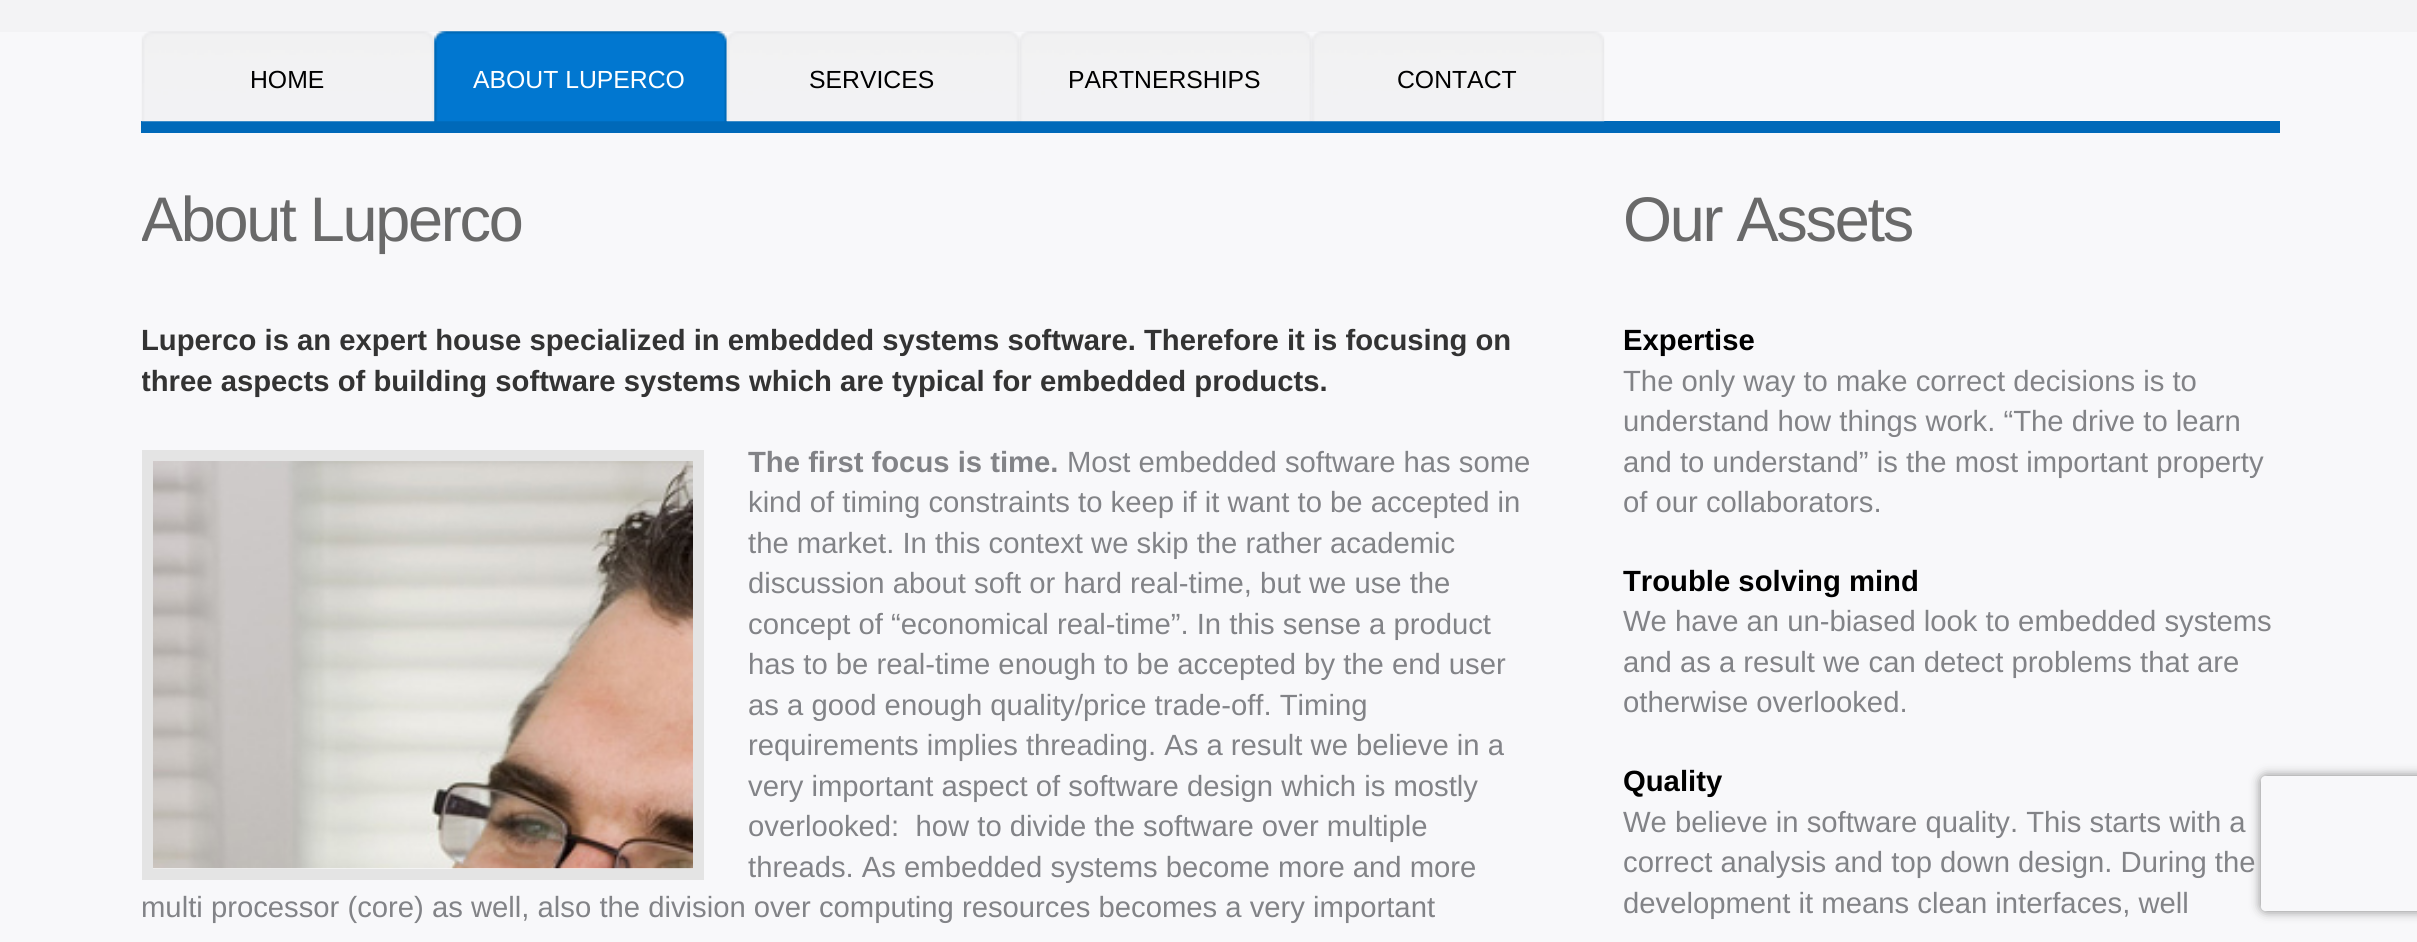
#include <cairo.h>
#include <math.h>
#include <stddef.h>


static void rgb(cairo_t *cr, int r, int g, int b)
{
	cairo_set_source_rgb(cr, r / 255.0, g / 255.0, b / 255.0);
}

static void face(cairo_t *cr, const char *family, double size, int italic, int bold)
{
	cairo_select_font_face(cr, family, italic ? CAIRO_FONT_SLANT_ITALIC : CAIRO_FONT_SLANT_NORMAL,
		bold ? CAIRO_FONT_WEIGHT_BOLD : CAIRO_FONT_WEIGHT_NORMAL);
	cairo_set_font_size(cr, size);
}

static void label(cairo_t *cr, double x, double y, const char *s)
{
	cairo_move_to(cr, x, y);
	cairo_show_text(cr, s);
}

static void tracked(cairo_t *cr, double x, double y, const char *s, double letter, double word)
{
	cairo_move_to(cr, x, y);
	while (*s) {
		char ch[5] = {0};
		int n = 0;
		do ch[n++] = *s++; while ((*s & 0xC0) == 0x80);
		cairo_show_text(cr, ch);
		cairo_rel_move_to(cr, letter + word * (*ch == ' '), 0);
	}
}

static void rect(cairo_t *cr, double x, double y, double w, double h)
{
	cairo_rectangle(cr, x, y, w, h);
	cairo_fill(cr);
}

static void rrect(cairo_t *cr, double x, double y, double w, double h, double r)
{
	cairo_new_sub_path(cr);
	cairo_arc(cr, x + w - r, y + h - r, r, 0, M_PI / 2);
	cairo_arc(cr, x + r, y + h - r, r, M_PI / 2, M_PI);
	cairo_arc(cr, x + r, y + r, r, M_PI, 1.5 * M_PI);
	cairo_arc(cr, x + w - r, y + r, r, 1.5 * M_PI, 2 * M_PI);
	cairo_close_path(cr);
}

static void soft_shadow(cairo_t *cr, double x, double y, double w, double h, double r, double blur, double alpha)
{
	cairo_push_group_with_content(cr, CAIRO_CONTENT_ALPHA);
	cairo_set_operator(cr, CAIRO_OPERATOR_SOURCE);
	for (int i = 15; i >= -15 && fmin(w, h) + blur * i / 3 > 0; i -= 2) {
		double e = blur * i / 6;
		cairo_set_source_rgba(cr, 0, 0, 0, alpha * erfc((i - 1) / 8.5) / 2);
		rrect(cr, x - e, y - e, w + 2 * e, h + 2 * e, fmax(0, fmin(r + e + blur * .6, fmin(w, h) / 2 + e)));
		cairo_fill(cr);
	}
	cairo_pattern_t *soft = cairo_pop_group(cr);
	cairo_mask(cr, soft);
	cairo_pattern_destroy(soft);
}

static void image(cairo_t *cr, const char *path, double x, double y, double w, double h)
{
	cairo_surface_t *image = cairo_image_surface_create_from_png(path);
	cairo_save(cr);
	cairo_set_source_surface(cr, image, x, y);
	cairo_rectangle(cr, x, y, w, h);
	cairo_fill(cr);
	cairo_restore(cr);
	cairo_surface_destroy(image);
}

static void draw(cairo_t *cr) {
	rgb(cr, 248, 248, 250);
	cairo_paint(cr);
	rgb(cr, 243, 243, 245);
	rect(cr, 0, 0, 2417, 32);
	rgb(cr, 0, 105, 185);
	rect(cr, 141, 121, 2139, 12);
	image(cr, "image0.png", 141, 31, 294, 91);
	face(cr, "Liberation Sans", 24.75, 0, 0);
	rgb(cr, 0, 0, 0);
	label(cr, 250, 88, "HOME");
	image(cr, "image1.png", 434, 31, 293, 91);
	rgb(cr, 255, 255, 255);
	label(cr, 473, 88, "ABOUT LUPERCO");
	image(cr, "image2.png", 726, 31, 294, 91);
	rgb(cr, 0, 0, 0);
	label(cr, 809, 88, "SERVICES");
	image(cr, "image3.png", 1019, 31, 293, 91);
	label(cr, 1068, 88, "PARTNERSHIPS");
	image(cr, "image4.png", 1311, 31, 294, 91);
	label(cr, 1397, 88, "CONTACT");
	cairo_save(cr);
	cairo_rectangle(cr, 142, 182, 2137, 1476);
	cairo_clip(cr);
	face(cr, "Liberation Sans", 63, 0, 0);
	rgb(cr, 105, 105, 105);
	tracked(cr, 141, 241, "About Luperco", -2.25, 0);
	cairo_restore(cr);
	face(cr, "Liberation Sans", 29.25, 0, 1);
	rgb(cr, 51, 51, 51);
	label(cr, 141, 350, "Luperco is an expert house specialized in embedded systems software. Therefore it is focusing on");
	cairo_save(cr);
	cairo_rectangle(cr, 142, 182, 2137, 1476);
	cairo_clip(cr);
	label(cr, 141, 391, "three aspects of building software systems which are typical for embedded products.");
	cairo_restore(cr);
	cairo_rectangle(cr, 147.5, 455.5, 551, 419);
	rgb(cr, 228, 228, 228);
	cairo_set_line_width(cr, 11);
	cairo_stroke(cr);
	image(cr, "image5.png", 153, 461, 540, 408);
	rgb(cr, 130, 131, 135);
	label(cr, 748, 472, "The first focus is time.");
	face(cr, "Liberation Sans", 29.25, 0, 0);
	label(cr, 1067, 472, "Most embedded software has some");
	label(cr, 748, 512, "kind of timing constraints to keep if it want to be accepted in");
	label(cr, 748, 553, "the market. In this context we skip the rather academic");
	label(cr, 748, 593, "discussion about soft or hard real-time, but we use the");
	label(cr, 748, 634, "concept of “economical real-time”. In this sense a product");
	label(cr, 748, 674, "has to be real-time enough to be accepted by the end user");
	label(cr, 748, 715, "as a good enough quality/price trade-off. Timing");
	label(cr, 748, 755, "requirements implies threading. As a result we believe in a");
	label(cr, 748, 796, "very important aspect of software design which is mostly");
	label(cr, 748, 836, "overlooked:  how to divide the software over multiple");
	label(cr, 748, 877, "threads. As embedded systems become more and more");
	label(cr, 141, 917, "multi processor (core) as well, also the division over computing resources becomes a very important");
	face(cr, "Liberation Sans", 63, 0, 0);
	rgb(cr, 105, 105, 105);
	tracked(cr, 1623, 241, "Our Assets", -2.25, 0);
	face(cr, "Liberation Sans", 29.25, 0, 1);
	rgb(cr, 0, 0, 0);
	label(cr, 1623, 350, "Expertise");
	face(cr, "Liberation Sans", 29.25, 0, 0);
	rgb(cr, 130, 131, 135);
	label(cr, 1623, 391, "The only way to make correct decisions is to");
	label(cr, 1623, 431, "understand how things work. “The drive to learn");
	label(cr, 1623, 472, "and to understand” is the most important property");
	label(cr, 1623, 512, "of our collaborators.");
	face(cr, "Liberation Sans", 29.25, 0, 1);
	rgb(cr, 0, 0, 0);
	label(cr, 1623, 591, "Trouble solving mind");
	face(cr, "Liberation Sans", 29.25, 0, 0);
	rgb(cr, 130, 131, 135);
	label(cr, 1623, 631, "We have an un-biased look to embedded systems");
	label(cr, 1623, 672, "and as a result we can detect problems that are");
	label(cr, 1623, 712, "otherwise overlooked.");
	face(cr, "Liberation Sans", 29.25, 0, 1);
	rgb(cr, 0, 0, 0);
	label(cr, 1623, 791, "Quality");
	cairo_save(cr);
	cairo_set_fill_rule(cr, CAIRO_FILL_RULE_EVEN_ODD);
	cairo_new_path(cr);
	cairo_move_to(cr, 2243, 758);
	cairo_line_to(cr, 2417, 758);
	cairo_line_to(cr, 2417, 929);
	cairo_line_to(cr, 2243, 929);
	cairo_close_path(cr);
	cairo_move_to(cr, 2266, 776);
	cairo_line_to(cr, 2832, 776);
	cairo_curve_to(cr, 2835, 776, 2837, 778, 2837, 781);
	cairo_line_to(cr, 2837, 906);
	cairo_curve_to(cr, 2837, 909, 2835, 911, 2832, 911);
	cairo_line_to(cr, 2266, 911);
	cairo_curve_to(cr, 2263, 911, 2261, 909, 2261, 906);
	cairo_line_to(cr, 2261, 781);
	cairo_curve_to(cr, 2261, 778, 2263, 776, 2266, 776);
	cairo_close_path(cr);
	cairo_clip(cr);
	rgb(cr, 128, 128, 128);
	soft_shadow(cr, 2261, 776, 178, 135, 5, 5.5, 1);
	cairo_restore(cr);
	face(cr, "Liberation Sans", 29.25, 0, 0);
	rgb(cr, 130, 131, 135);
	label(cr, 1623, 832, "We believe in software quality. This starts with a");
	label(cr, 1623, 872, "correct analysis and top down design. During the");
	label(cr, 1623, 913, "development it means clean interfaces, well");
}

int main(void) {
	cairo_surface_t *surface = cairo_image_surface_create(CAIRO_FORMAT_RGB24, 2417, 942);
	cairo_t *cr = cairo_create(surface);
	cairo_font_options_t *options = cairo_font_options_create();
	cairo_font_options_set_hint_metrics(options, CAIRO_HINT_METRICS_OFF);
	cairo_font_options_set_hint_style(options, CAIRO_HINT_STYLE_NONE);
	cairo_set_font_options(cr, options);
	cairo_set_miter_limit(cr, 4);
	draw(cr);
	cairo_surface_write_to_png(surface, "render.png");
	cairo_font_options_destroy(options);
	cairo_destroy(cr);
	cairo_surface_destroy(surface);
	return 0;
}
